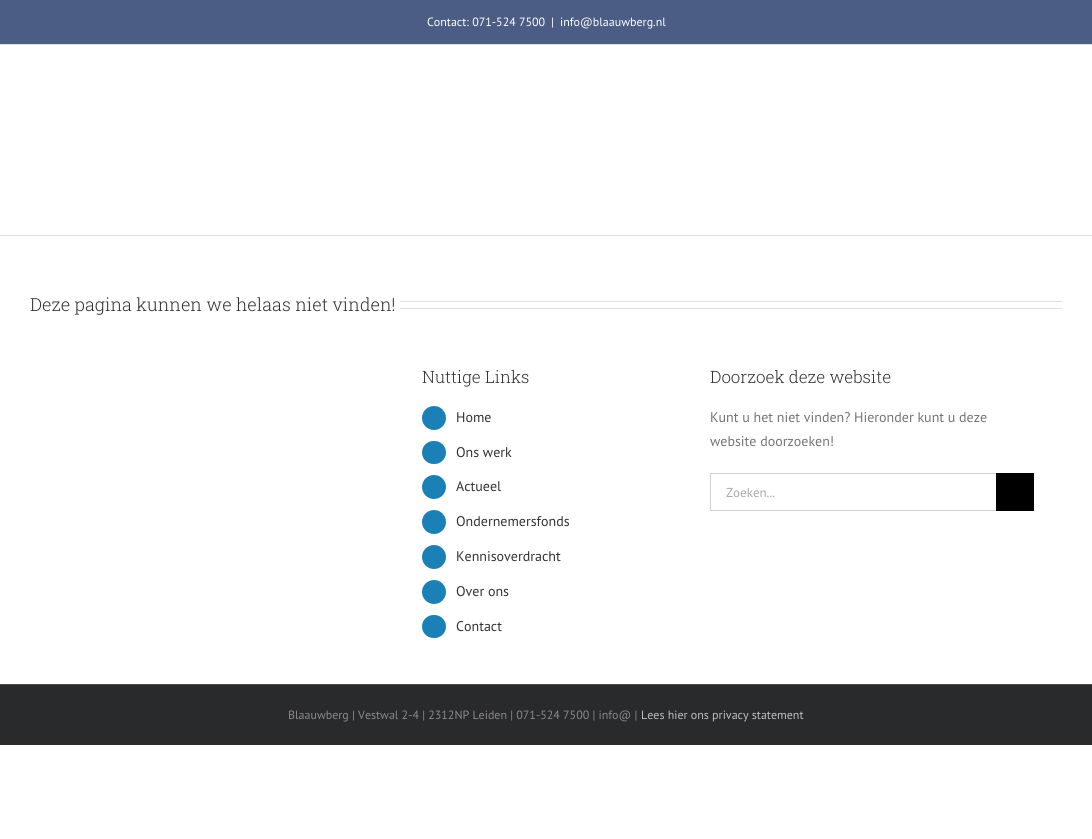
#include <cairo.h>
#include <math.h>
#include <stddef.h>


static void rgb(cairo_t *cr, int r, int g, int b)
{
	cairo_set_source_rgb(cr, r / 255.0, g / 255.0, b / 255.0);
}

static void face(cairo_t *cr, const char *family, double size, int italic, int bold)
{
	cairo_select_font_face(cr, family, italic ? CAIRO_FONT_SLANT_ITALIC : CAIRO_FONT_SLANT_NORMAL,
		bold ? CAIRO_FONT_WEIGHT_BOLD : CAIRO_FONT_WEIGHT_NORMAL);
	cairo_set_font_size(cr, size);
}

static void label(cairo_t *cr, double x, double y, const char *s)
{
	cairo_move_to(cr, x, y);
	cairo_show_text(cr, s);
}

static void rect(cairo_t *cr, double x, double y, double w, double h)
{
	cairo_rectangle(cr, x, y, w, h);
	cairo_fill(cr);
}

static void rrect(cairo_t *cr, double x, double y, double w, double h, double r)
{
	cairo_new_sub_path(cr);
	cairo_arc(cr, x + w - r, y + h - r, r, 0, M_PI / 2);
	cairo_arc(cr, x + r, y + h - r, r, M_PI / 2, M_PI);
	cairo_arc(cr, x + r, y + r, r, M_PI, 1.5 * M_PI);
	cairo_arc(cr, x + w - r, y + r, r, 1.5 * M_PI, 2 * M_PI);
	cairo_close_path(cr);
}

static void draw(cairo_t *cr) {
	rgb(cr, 255, 255, 255);
	cairo_paint(cr);
	rgb(cr, 75, 93, 132);
	rect(cr, 0, 0, 1092, 44);
	rgb(cr, 225, 225, 225);
	rect(cr, 0, 44, 1092, 1);
	face(cr, "PT Sans", 12, 0, 0);
	rgb(cr, 255, 255, 255);
	label(cr, 427, 26, "Contact: 071-524 7500");
	label(cr, 551, 26, "|");
	label(cr, 560, 26, "info@blaauwberg.nl");
	rgb(cr, 225, 225, 225);
	rect(cr, 0, 235, 1092, 1);
	face(cr, "Roboto Slab Light", 18, 0, 0);
	rgb(cr, 51, 51, 51);
	label(cr, 30, 311, "Deze pagina kunnen we helaas niet vinden!");
	rgb(cr, 224, 222, 222);
	rect(cr, 400, 301, 662, 1);
	rect(cr, 400, 308, 662, 1);
	face(cr, "Roboto Slab Light", 17, 0, 0);
	rgb(cr, 51, 51, 51);
	label(cr, 422, 383, "Nuttige Links");
	rgb(cr, 26, 128, 182);
	cairo_new_path(cr);
	cairo_arc(cr, 434, 418, 12, 0, 2 * M_PI);
	cairo_fill(cr);
	face(cr, "PT Sans", 14, 0, 0);
	rgb(cr, 51, 51, 51);
	label(cr, 456, 422, "Home");
	rgb(cr, 26, 128, 182);
	rrect(cr, 422, 441, 24, 23, 11.5);
	cairo_fill(cr);
	rgb(cr, 51, 51, 51);
	label(cr, 456, 457, "Ons werk");
	rgb(cr, 26, 128, 182);
	cairo_new_path(cr);
	cairo_arc(cr, 434, 487, 12, 0, 2 * M_PI);
	cairo_fill(cr);
	rgb(cr, 51, 51, 51);
	label(cr, 456, 491, "Actueel");
	rgb(cr, 26, 128, 182);
	cairo_new_path(cr);
	cairo_arc(cr, 434, 522, 12, 0, 2 * M_PI);
	cairo_fill(cr);
	rgb(cr, 51, 51, 51);
	label(cr, 456, 526, "Ondernemersfonds");
	rgb(cr, 26, 128, 182);
	cairo_new_path(cr);
	cairo_arc(cr, 434, 557, 12, 0, 2 * M_PI);
	cairo_fill(cr);
	rgb(cr, 51, 51, 51);
	label(cr, 456, 561, "Kennisoverdracht");
	rgb(cr, 26, 128, 182);
	cairo_new_path(cr);
	cairo_arc(cr, 434, 592, 12, 0, 2 * M_PI);
	cairo_fill(cr);
	rgb(cr, 51, 51, 51);
	label(cr, 456, 596, "Over ons");
	rgb(cr, 26, 128, 182);
	rrect(cr, 422, 615, 24, 23, 11.5);
	cairo_fill(cr);
	rgb(cr, 51, 51, 51);
	label(cr, 456, 631, "Contact");
	face(cr, "Roboto Slab Light", 17, 0, 0);
	label(cr, 710, 383, "Doorzoek deze website");
	face(cr, "PT Sans", 14, 0, 0);
	rgb(cr, 116, 116, 116);
	label(cr, 710, 422, "Kunt u het niet vinden? Hieronder kunt u deze");
	label(cr, 710, 446, "website doorzoeken!");
	rgb(cr, 210, 210, 210);
	rect(cr, 710, 473, 286, 1);
	rect(cr, 710, 510, 286, 1);
	rect(cr, 710, 473, 1, 38);
	face(cr, "PT Sans", 13, 0, 0);
	rgb(cr, 170, 169, 169);
	label(cr, 726, 497, "Zoeken...");
	rgb(cr, 0, 0, 0);
	rect(cr, 996, 473, 38, 38);
	rgb(cr, 40, 42, 43);
	rect(cr, 0, 685, 1092, 60);
	rgb(cr, 75, 76, 77);
	rect(cr, 0, 684, 1092, 1);
	face(cr, "PT Sans", 12, 0, 0);
	rgb(cr, 140, 137, 137);
	label(cr, 288, 719, "Blaauwberg | Vestwal 2-4 | 2312NP Leiden | 071-524 7500 | info@ |");
	rgb(cr, 191, 191, 191);
	label(cr, 641, 719, "Lees hier ons privacy statement");
}

int main(void) {
	cairo_surface_t *surface = cairo_image_surface_create(CAIRO_FORMAT_RGB24, 1092, 839);
	cairo_t *cr = cairo_create(surface);
	cairo_font_options_t *options = cairo_font_options_create();
	cairo_font_options_set_hint_metrics(options, CAIRO_HINT_METRICS_OFF);
	cairo_font_options_set_hint_style(options, CAIRO_HINT_STYLE_NONE);
	cairo_set_font_options(cr, options);
	cairo_set_miter_limit(cr, 4);
	draw(cr);
	cairo_surface_write_to_png(surface, "render.png");
	cairo_font_options_destroy(options);
	cairo_destroy(cr);
	cairo_surface_destroy(surface);
	return 0;
}
